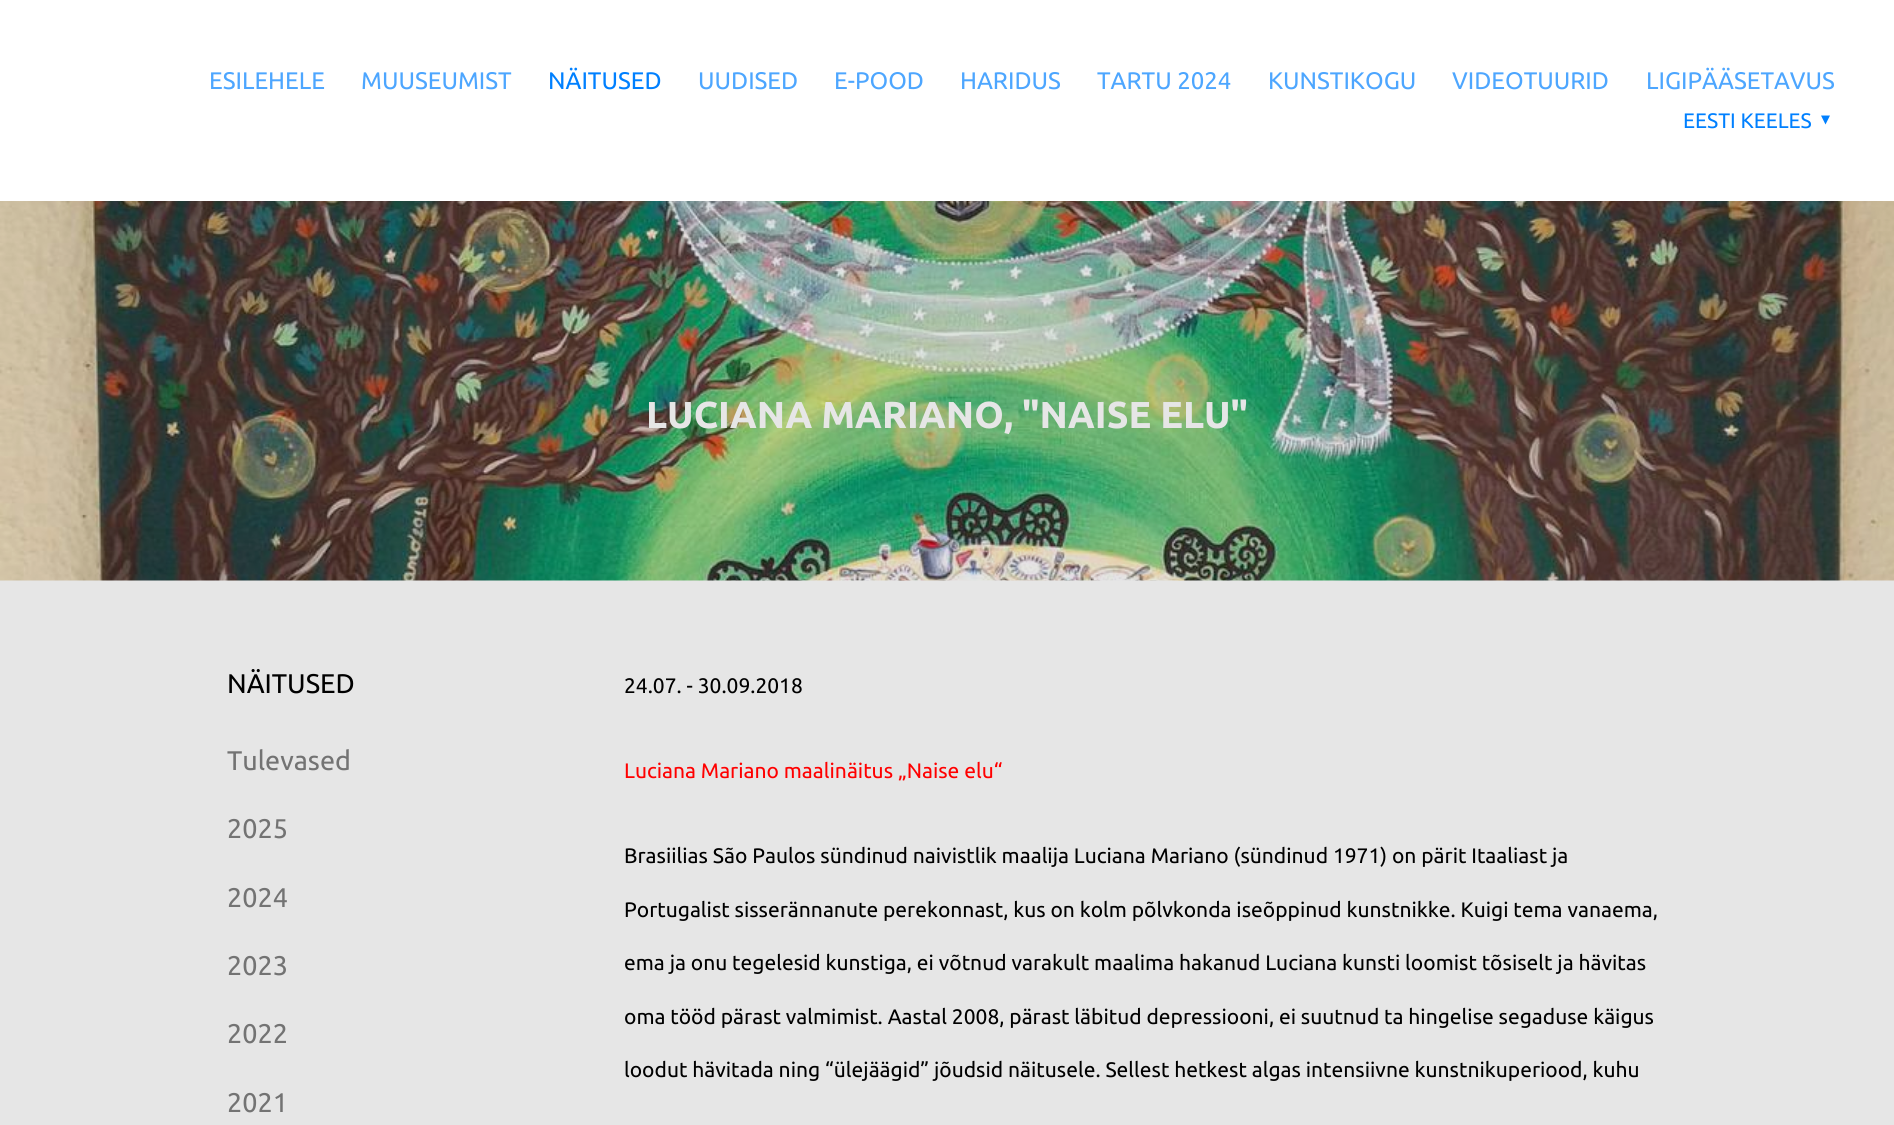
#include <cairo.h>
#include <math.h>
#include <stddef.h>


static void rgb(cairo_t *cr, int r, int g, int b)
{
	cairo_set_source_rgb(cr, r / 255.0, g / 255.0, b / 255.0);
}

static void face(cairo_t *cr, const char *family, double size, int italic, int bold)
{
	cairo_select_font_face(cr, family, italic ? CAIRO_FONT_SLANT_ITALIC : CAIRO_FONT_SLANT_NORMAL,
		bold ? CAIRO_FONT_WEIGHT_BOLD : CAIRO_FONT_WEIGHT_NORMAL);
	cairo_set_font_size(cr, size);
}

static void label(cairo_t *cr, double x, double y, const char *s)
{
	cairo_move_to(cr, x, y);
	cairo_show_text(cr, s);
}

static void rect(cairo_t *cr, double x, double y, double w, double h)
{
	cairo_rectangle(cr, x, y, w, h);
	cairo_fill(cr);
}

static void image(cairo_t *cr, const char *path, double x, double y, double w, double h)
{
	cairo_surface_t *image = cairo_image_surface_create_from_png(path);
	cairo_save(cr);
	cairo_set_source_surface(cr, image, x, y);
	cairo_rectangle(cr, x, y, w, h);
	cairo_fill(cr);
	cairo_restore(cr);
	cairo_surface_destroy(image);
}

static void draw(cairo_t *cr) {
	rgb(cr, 230, 230, 230);
	cairo_paint(cr);
	rgb(cr, 255, 255, 255);
	rect(cr, 0, 0, 1894, 201);
	face(cr, "Ubuntu", 24, 0, 0);
	rgb(cr, 77, 166, 255);
	label(cr, 209, 89, "ESILEHELE");
	label(cr, 361, 89, "MUUSEUMIST");
	rgb(cr, 0, 128, 255);
	label(cr, 548, 89, "NÄITUSED");
	rgb(cr, 77, 166, 255);
	label(cr, 698, 89, "UUDISED");
	label(cr, 834, 89, "E-POOD");
	label(cr, 960, 89, "HARIDUS");
	label(cr, 1097, 89, "TARTU 2024");
	label(cr, 1268, 89, "KUNSTIKOGU");
	label(cr, 1452, 89, "VIDEOTUURID");
	label(cr, 1646, 89, "LIGIPÄÄSETAVUS");
	face(cr, "Ubuntu", 21, 0, 0);
	rgb(cr, 0, 128, 255);
	label(cr, 1683, 128, "EESTI KEELES");
	cairo_new_path(cr);
	cairo_move_to(cr, 1821, 115.5);
	cairo_line_to(cr, 1830, 115.5);
	cairo_line_to(cr, 1825.5, 124.5);
	cairo_close_path(cr);
	cairo_fill(cr);
	image(cr, "image0.png", 0, 201, 1894, 380);
	face(cr, "Ubuntu", 37.5, 0, 1);
	rgb(cr, 230, 230, 230);
	label(cr, 646, 428, "LUCIANA MARIANO, \"NAISE ELU\"");
	face(cr, "Ubuntu", 27, 0, 0);
	rgb(cr, 0, 0, 0);
	label(cr, 227, 693, "NÄITUSED");
	rgb(cr, 115, 115, 115);
	label(cr, 227, 770, "Tulevased");
	label(cr, 227, 838, "2025");
	label(cr, 227, 907, "2024");
	label(cr, 227, 975, "2023");
	label(cr, 227, 1043, "2022");
	label(cr, 227, 1112, "2021");
	face(cr, "Ubuntu", 21, 0, 0);
	rgb(cr, 0, 0, 0);
	label(cr, 624, 693, "24.07. - 30.09.2018");
	rgb(cr, 255, 0, 0);
	label(cr, 624, 778, "Luciana Mariano maalinäitus „Naise elu“");
	rgb(cr, 0, 0, 0);
	label(cr, 624, 863, "Brasiilias São Paulos sündinud naivistlik maalija Luciana Mariano (sündinud 1971) on pärit Itaaliast ja");
	label(cr, 624, 917, "Portugalist sisserännanute perekonnast, kus on kolm põlvkonda iseõppinud kunstnikke. Kuigi tema vanaema,");
	label(cr, 624, 970, "ema ja onu tegelesid kunstiga, ei võtnud varakult maalima hakanud Luciana kunsti loomist tõsiselt ja hävitas");
	label(cr, 624, 1024, "oma tööd pärast valmimist. Aastal 2008, pärast läbitud depressiooni, ei suutnud ta hingelise segaduse käigus");
	label(cr, 624, 1077, "loodut hävitada ning “ülejäägid” jõudsid näitusele. Sellest hetkest algas intensiivne kunstnikuperiood, kuhu");
}

int main(void) {
	cairo_surface_t *surface = cairo_image_surface_create(CAIRO_FORMAT_RGB24, 1894, 1125);
	cairo_t *cr = cairo_create(surface);
	cairo_font_options_t *options = cairo_font_options_create();
	cairo_font_options_set_hint_metrics(options, CAIRO_HINT_METRICS_OFF);
	cairo_font_options_set_hint_style(options, CAIRO_HINT_STYLE_NONE);
	cairo_set_font_options(cr, options);
	cairo_set_miter_limit(cr, 4);
	draw(cr);
	cairo_surface_write_to_png(surface, "render.png");
	cairo_font_options_destroy(options);
	cairo_destroy(cr);
	cairo_surface_destroy(surface);
	return 0;
}
